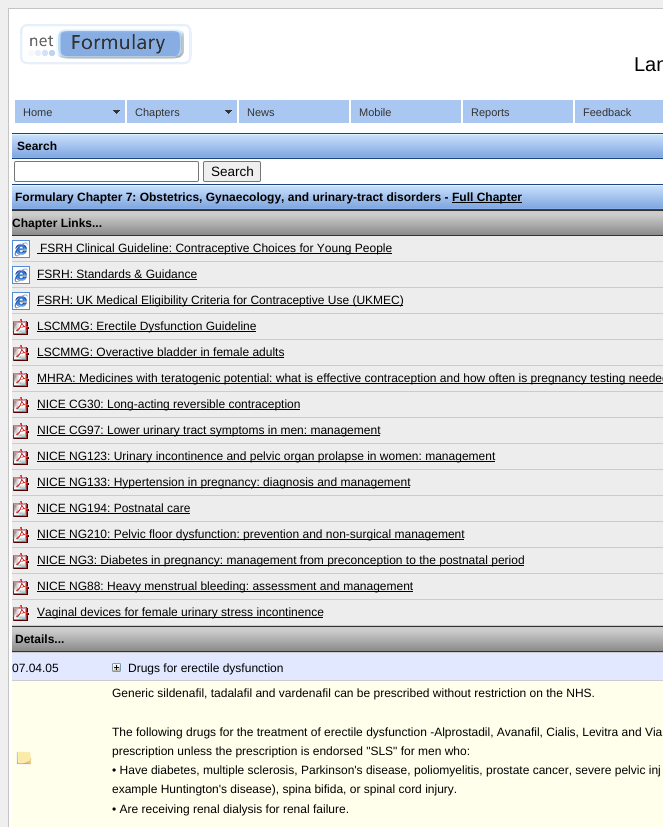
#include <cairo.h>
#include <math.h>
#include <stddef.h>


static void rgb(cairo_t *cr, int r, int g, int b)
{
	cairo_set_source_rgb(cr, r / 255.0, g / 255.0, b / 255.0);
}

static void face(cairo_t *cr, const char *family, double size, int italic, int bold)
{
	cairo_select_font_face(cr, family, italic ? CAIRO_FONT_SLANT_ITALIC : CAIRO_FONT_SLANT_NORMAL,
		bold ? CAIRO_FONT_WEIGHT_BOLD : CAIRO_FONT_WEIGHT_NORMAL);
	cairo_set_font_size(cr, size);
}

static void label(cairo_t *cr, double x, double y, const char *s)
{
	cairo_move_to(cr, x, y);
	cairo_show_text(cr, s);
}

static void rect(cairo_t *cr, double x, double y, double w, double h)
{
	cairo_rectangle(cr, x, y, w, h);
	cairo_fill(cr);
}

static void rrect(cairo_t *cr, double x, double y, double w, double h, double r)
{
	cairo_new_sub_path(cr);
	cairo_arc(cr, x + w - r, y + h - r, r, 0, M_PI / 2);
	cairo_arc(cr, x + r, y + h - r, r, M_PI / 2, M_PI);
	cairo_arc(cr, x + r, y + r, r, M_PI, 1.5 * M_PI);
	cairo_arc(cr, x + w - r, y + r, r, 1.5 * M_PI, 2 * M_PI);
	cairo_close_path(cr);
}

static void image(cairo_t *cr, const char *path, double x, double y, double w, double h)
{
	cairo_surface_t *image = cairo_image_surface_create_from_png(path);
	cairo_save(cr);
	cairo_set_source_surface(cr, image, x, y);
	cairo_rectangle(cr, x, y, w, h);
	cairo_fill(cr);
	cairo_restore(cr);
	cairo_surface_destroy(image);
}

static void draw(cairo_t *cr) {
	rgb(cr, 239, 239, 239);
	cairo_paint(cr);
	rgb(cr, 255, 255, 255);
	cairo_rectangle(cr, 8.5, 8.5, 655, 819);
	cairo_fill_preserve(cr);
	rgb(cr, 196, 196, 196);
	cairo_set_line_width(cr, 1);
	cairo_stroke(cr);
	image(cr, "image0.png", 20, 24, 172, 41);
	face(cr, "Liberation Sans", 20, 0, 0);
	rgb(cr, 0, 0, 0);
	label(cr, 634, 71, "Lan");
	rgb(cr, 169, 199, 240);
	rect(cr, 15, 100, 110, 23);
	image(cr, "image1.png", 113, 110, 7, 4);
	face(cr, "Liberation Sans", 11, 0, 0);
	rgb(cr, 51, 51, 51);
	label(cr, 23, 116, "Home");
	rgb(cr, 169, 199, 240);
	rect(cr, 127, 100, 110, 23);
	image(cr, "image1.png", 225, 110, 7, 4);
	rgb(cr, 51, 51, 51);
	label(cr, 135, 116, "Chapters");
	rgb(cr, 169, 199, 240);
	rect(cr, 239, 100, 110, 23);
	rgb(cr, 51, 51, 51);
	label(cr, 247, 116, "News");
	rgb(cr, 169, 199, 240);
	rect(cr, 351, 100, 110, 23);
	rgb(cr, 51, 51, 51);
	label(cr, 359, 116, "Mobile");
	rgb(cr, 169, 199, 240);
	rect(cr, 463, 100, 110, 23);
	rgb(cr, 51, 51, 51);
	label(cr, 471, 116, "Reports");
	rgb(cr, 169, 199, 240);
	rect(cr, 575, 100, 88, 23);
	rgb(cr, 51, 51, 51);
	label(cr, 583, 116, "Feedback");
	image(cr, "image2.png", 12, 133, 651, 26);
	face(cr, "Liberation Sans", 12, 0, 1);
	rgb(cr, 0, 0, 0);
	label(cr, 17, 150, "Search");
	rrect(cr, 14.5, 161.5, 184, 20, 1.5);
	rgb(cr, 118, 118, 118);
	cairo_stroke(cr);
	rgb(cr, 239, 239, 239);
	rrect(cr, 203.5, 161.5, 57, 20, 1.5);
	cairo_fill_preserve(cr);
	rgb(cr, 118, 118, 118);
	cairo_stroke(cr);
	face(cr, "Liberation Sans", 13.5, 0, 0);
	rgb(cr, 0, 0, 0);
	label(cr, 211, 176, "Search");
	image(cr, "image2.png", 12, 184, 651, 26);
	face(cr, "Liberation Sans", 12, 0, 1);
	label(cr, 15, 201, "Formulary Chapter 7: Obstetrics, Gynaecology, and urinary-tract disorders -");
	rect(cr, 452, 202, 70, 1);
	label(cr, 452, 201, "Full Chapter");
	image(cr, "image3.png", 12, 210, 651, 26);
	label(cr, 12, 227, "Chapter Links...");
	rgb(cr, 237, 237, 237);
	rect(cr, 12, 236, 651, 25);
	rgb(cr, 204, 204, 204);
	rect(cr, 12, 261, 651, 1);
	image(cr, "image4.png", 12, 240, 18, 18);
	rgb(cr, 0, 0, 0);
	rect(cr, 37, 253, 355, 1);
	face(cr, "Liberation Sans", 12, 0, 0);
	label(cr, 40, 252, "FSRH Clinical Guideline: Contraceptive Choices for Young People");
	rgb(cr, 237, 237, 237);
	rect(cr, 12, 262, 651, 25);
	rgb(cr, 204, 204, 204);
	rect(cr, 12, 287, 651, 1);
	image(cr, "image4.png", 12, 266, 18, 18);
	rgb(cr, 0, 0, 0);
	label(cr, 37, 278, "FSRH: Standards & Guidance");
	rect(cr, 37, 279, 160, 1);
	rgb(cr, 237, 237, 237);
	rect(cr, 12, 288, 651, 25);
	rgb(cr, 204, 204, 204);
	rect(cr, 12, 313, 651, 1);
	image(cr, "image4.png", 12, 292, 18, 18);
	rgb(cr, 0, 0, 0);
	rect(cr, 37, 305, 366, 1);
	label(cr, 37, 304, "FSRH: UK Medical Eligibility Criteria for Contraceptive Use (UKMEC)");
	rgb(cr, 237, 237, 237);
	rect(cr, 12, 314, 651, 25);
	rgb(cr, 204, 204, 204);
	rect(cr, 12, 339, 651, 1);
	image(cr, "image5.png", 13, 319, 16, 16);
	rgb(cr, 0, 0, 0);
	rect(cr, 37, 331, 219, 1);
	label(cr, 37, 330, "LSCMMG: Erectile Dysfunction Guideline");
	rgb(cr, 237, 237, 237);
	rect(cr, 12, 340, 651, 25);
	rgb(cr, 204, 204, 204);
	rect(cr, 12, 365, 651, 1);
	image(cr, "image5.png", 13, 345, 16, 16);
	rgb(cr, 0, 0, 0);
	label(cr, 37, 356, "LSCMMG: Overactive bladder in female adults");
	rect(cr, 37, 357, 247, 1);
	rgb(cr, 237, 237, 237);
	rect(cr, 12, 366, 651, 25);
	rgb(cr, 204, 204, 204);
	rect(cr, 12, 391, 651, 1);
	image(cr, "image5.png", 13, 371, 16, 16);
	rgb(cr, 0, 0, 0);
	rect(cr, 37, 383, 626, 1);
	label(cr, 37, 382, "MHRA: Medicines with teratogenic potential: what is effective contraception and how often is pregnancy testing needed");
	rgb(cr, 237, 237, 237);
	rect(cr, 12, 392, 651, 25);
	rgb(cr, 204, 204, 204);
	rect(cr, 12, 417, 651, 1);
	image(cr, "image5.png", 13, 397, 16, 16);
	rgb(cr, 0, 0, 0);
	rect(cr, 37, 409, 263, 1);
	label(cr, 37, 408, "NICE CG30: Long-acting reversible contraception");
	rgb(cr, 237, 237, 237);
	rect(cr, 12, 418, 651, 25);
	rgb(cr, 204, 204, 204);
	rect(cr, 12, 443, 651, 1);
	image(cr, "image5.png", 13, 423, 16, 16);
	rgb(cr, 0, 0, 0);
	rect(cr, 37, 435, 343, 1);
	label(cr, 37, 434, "NICE CG97: Lower urinary tract symptoms in men: management");
	rgb(cr, 237, 237, 237);
	rect(cr, 12, 444, 651, 25);
	rgb(cr, 204, 204, 204);
	rect(cr, 12, 469, 651, 1);
	image(cr, "image5.png", 13, 449, 16, 16);
	rgb(cr, 0, 0, 0);
	rect(cr, 37, 461, 458, 1);
	label(cr, 37, 460, "NICE NG123: Urinary incontinence and pelvic organ prolapse in women: management");
	rgb(cr, 237, 237, 237);
	rect(cr, 12, 470, 651, 25);
	rgb(cr, 204, 204, 204);
	rect(cr, 12, 495, 651, 1);
	image(cr, "image5.png", 13, 475, 16, 16);
	rgb(cr, 0, 0, 0);
	rect(cr, 37, 487, 373, 1);
	label(cr, 37, 486, "NICE NG133: Hypertension in pregnancy: diagnosis and management");
	rgb(cr, 237, 237, 237);
	rect(cr, 12, 496, 651, 25);
	rgb(cr, 204, 204, 204);
	rect(cr, 12, 521, 651, 1);
	image(cr, "image5.png", 13, 501, 16, 16);
	rgb(cr, 0, 0, 0);
	label(cr, 37, 512, "NICE NG194: Postnatal care");
	rect(cr, 37, 513, 153, 1);
	rgb(cr, 237, 237, 237);
	rect(cr, 12, 522, 651, 25);
	rgb(cr, 204, 204, 204);
	rect(cr, 12, 547, 651, 1);
	image(cr, "image5.png", 13, 527, 16, 16);
	rgb(cr, 0, 0, 0);
	rect(cr, 37, 539, 427, 1);
	label(cr, 37, 538, "NICE NG210: Pelvic floor dysfunction: prevention and non-surgical management");
	rgb(cr, 237, 237, 237);
	rect(cr, 12, 548, 651, 25);
	rgb(cr, 204, 204, 204);
	rect(cr, 12, 573, 651, 1);
	image(cr, "image5.png", 13, 553, 16, 16);
	rgb(cr, 0, 0, 0);
	rect(cr, 37, 565, 487, 1);
	label(cr, 37, 564, "NICE NG3: Diabetes in pregnancy: management from preconception to the postnatal period");
	rgb(cr, 237, 237, 237);
	rect(cr, 12, 574, 651, 25);
	rgb(cr, 204, 204, 204);
	rect(cr, 12, 599, 651, 1);
	image(cr, "image5.png", 13, 579, 16, 16);
	rgb(cr, 0, 0, 0);
	rect(cr, 37, 591, 376, 1);
	label(cr, 37, 590, "NICE NG88: Heavy menstrual bleeding: assessment and management");
	rgb(cr, 237, 237, 237);
	rect(cr, 12, 600, 651, 25);
	rgb(cr, 204, 204, 204);
	rect(cr, 12, 625, 651, 1);
	image(cr, "image5.png", 13, 605, 16, 16);
	rgb(cr, 0, 0, 0);
	rect(cr, 37, 617, 286, 1);
	label(cr, 37, 616, "Vaginal devices for female urinary stress incontinence");
	image(cr, "image3.png", 12, 626, 651, 26);
	face(cr, "Liberation Sans", 12, 0, 1);
	label(cr, 15, 643, "Details...");
	rgb(cr, 225, 232, 255);
	rect(cr, 12, 653, 651, 27);
	rgb(cr, 204, 204, 204);
	rect(cr, 12, 652, 651, 1);
	face(cr, "Liberation Sans", 12, 0, 0);
	rgb(cr, 0, 0, 0);
	label(cr, 12, 672, "07.04.05");
	image(cr, "image6.png", 112, 663, 9, 9);
	label(cr, 128, 672, "Drugs for erectile dysfunction");
	rgb(cr, 255, 255, 236);
	rect(cr, 12, 681, 651, 146);
	rgb(cr, 204, 204, 204);
	rect(cr, 12, 680, 651, 1);
	image(cr, "image7.png", 16, 751, 16, 14);
	rgb(cr, 0, 0, 0);
	label(cr, 112, 697, "Generic sildenafil, tadalafil and vardenafil can be prescribed without restriction on the NHS.");
	label(cr, 112, 736, "The following drugs for the treatment of erectile dysfunction -Alprostadil, Avanafil, Cialis, Levitra and Via");
	label(cr, 112, 755, "prescription unless the prescription is endorsed \"SLS\" for men who:");
	label(cr, 112, 774, "• Have diabetes, multiple sclerosis, Parkinson's disease, poliomyelitis, prostate cancer, severe pelvic inj");
	label(cr, 112, 793, "example Huntington's disease), spina bifida, or spinal cord injury.");
	label(cr, 112, 813, "• Are receiving renal dialysis for renal failure.");
}

int main(void) {
	cairo_surface_t *surface = cairo_image_surface_create(CAIRO_FORMAT_RGB24, 663, 827);
	cairo_t *cr = cairo_create(surface);
	cairo_font_options_t *options = cairo_font_options_create();
	cairo_font_options_set_hint_metrics(options, CAIRO_HINT_METRICS_OFF);
	cairo_font_options_set_hint_style(options, CAIRO_HINT_STYLE_NONE);
	cairo_set_font_options(cr, options);
	cairo_set_miter_limit(cr, 4);
	draw(cr);
	cairo_surface_write_to_png(surface, "render.png");
	cairo_font_options_destroy(options);
	cairo_destroy(cr);
	cairo_surface_destroy(surface);
	return 0;
}
